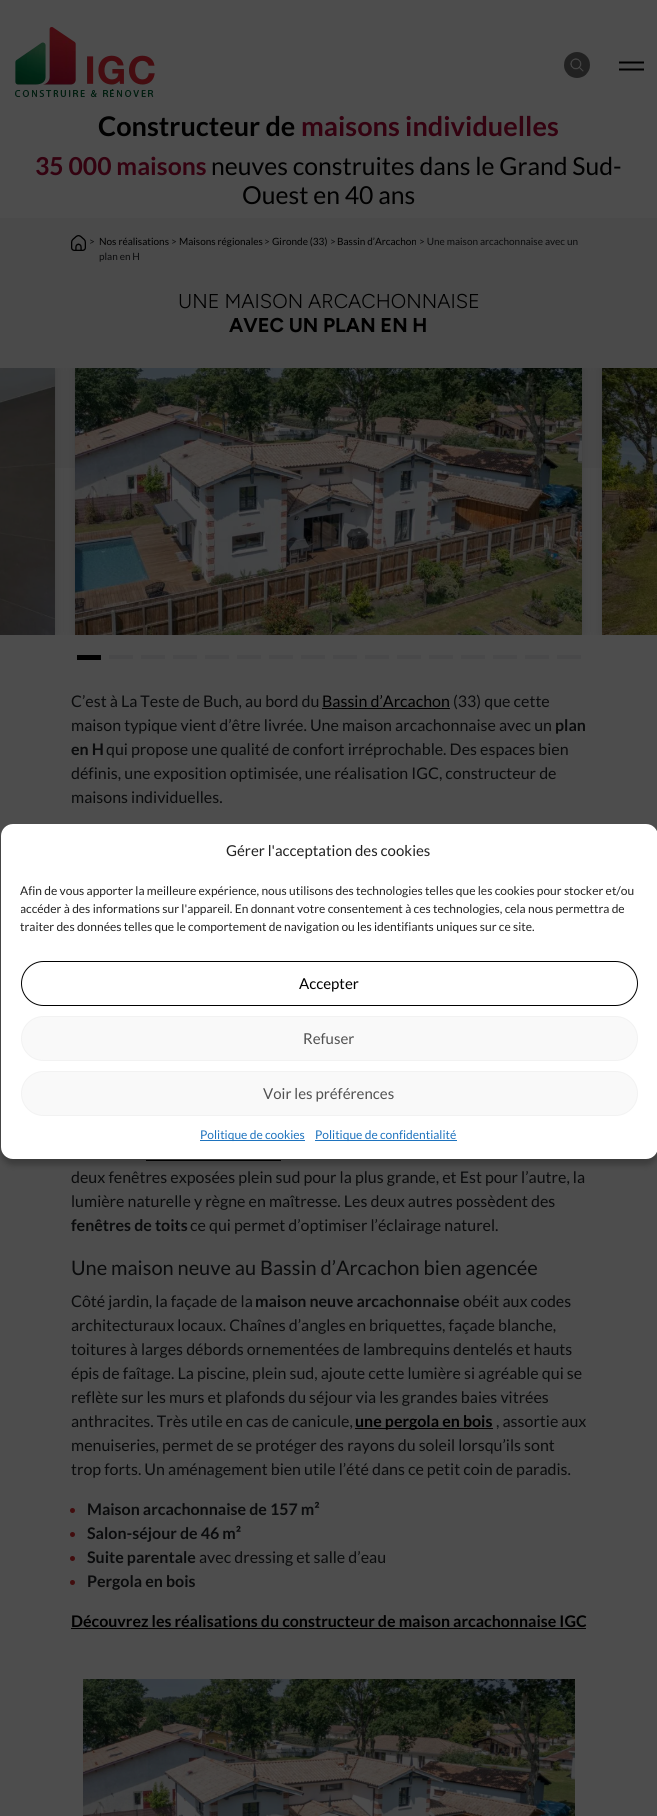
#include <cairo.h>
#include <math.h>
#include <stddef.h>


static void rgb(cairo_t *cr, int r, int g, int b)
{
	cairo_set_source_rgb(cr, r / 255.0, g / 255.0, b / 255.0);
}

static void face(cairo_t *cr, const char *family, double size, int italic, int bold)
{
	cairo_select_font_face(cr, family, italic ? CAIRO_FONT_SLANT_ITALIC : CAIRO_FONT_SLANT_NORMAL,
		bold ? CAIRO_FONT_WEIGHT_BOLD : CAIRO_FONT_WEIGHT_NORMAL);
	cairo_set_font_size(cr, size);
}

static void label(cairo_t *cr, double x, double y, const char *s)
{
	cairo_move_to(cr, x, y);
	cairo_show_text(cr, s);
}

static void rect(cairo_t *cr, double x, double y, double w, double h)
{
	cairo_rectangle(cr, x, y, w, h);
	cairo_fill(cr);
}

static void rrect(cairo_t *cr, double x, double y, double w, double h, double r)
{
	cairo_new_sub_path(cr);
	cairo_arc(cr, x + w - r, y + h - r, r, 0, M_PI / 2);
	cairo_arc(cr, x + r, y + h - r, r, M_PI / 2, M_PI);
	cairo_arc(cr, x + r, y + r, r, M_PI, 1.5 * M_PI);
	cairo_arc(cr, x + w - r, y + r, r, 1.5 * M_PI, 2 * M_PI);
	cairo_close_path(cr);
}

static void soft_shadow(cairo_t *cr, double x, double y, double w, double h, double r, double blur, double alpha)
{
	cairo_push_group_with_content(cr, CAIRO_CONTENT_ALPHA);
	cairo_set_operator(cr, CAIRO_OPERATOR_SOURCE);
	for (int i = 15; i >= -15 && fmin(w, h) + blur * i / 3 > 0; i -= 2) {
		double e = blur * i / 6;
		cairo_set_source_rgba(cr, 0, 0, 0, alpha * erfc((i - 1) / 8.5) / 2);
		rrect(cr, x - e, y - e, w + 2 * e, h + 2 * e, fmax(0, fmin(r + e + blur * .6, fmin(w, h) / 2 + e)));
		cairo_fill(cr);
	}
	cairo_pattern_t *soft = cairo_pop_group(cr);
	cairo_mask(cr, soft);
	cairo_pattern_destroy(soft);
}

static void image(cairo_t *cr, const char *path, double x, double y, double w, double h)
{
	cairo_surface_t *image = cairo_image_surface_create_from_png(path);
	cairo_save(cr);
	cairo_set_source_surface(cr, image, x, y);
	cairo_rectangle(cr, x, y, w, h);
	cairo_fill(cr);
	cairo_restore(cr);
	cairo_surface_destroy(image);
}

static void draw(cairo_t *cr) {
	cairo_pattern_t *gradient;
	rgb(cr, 77, 77, 77);
	cairo_paint(cr);
	image(cr, "image0.png", 15, 27, 140, 70);
	image(cr, "image1.png", 564, 52, 26, 26);
	image(cr, "image2.png", 619, 61, 25, 10);
	face(cr, "Lato", 27.1, 0, 1);
	rgb(cr, 0, 0, 0);
	label(cr, 98, 136, "Constructeur de");
	rgb(cr, 51, 2, 16);
	label(cr, 301, 136, "maisons individuelles");
	face(cr, "Lato", 24.75, 0, 1);
	label(cr, 35, 175, "35 000 maisons");
	face(cr, "Lato", 24.75, 0, 0);
	rgb(cr, 0, 0, 0);
	label(cr, 211, 175, "neuves construites dans le Grand Sud-");
	label(cr, 242, 204, "Ouest en 40 ans");
	rgb(cr, 74, 74, 74);
	rect(cr, 0, 218, 657, 250);
	image(cr, "image3.png", 71, 235, 15, 16);
	face(cr, "Lato", 10, 0, 0);
	rgb(cr, 10, 11, 12);
	label(cr, 89, 245, ">");
	rgb(cr, 0, 0, 0);
	label(cr, 99, 245, "Nos réalisations");
	rgb(cr, 10, 11, 12);
	label(cr, 171, 245, ">");
	rgb(cr, 0, 0, 0);
	label(cr, 179, 245, "Maisons régionales");
	rgb(cr, 10, 11, 12);
	label(cr, 264, 245, ">");
	rgb(cr, 0, 0, 0);
	label(cr, 272, 245, "Gironde (33)");
	rgb(cr, 10, 11, 12);
	label(cr, 330, 245, ">");
	rgb(cr, 0, 0, 0);
	label(cr, 337, 245, "Bassin d’Arcachon");
	rgb(cr, 10, 11, 12);
	label(cr, 419, 245, "> Une maison arcachonnaise avec un");
	label(cr, 99, 260, "plan en H");
	face(cr, "Figtree Light", 20, 0, 0);
	rgb(cr, 0, 0, 0);
	label(cr, 178, 308, "UNE MAISON ARCACHONNAISE");
	face(cr, "Figtree", 20, 0, 1);
	label(cr, 229, 332, "AVEC UN PLAN EN H");
	cairo_save(cr);
	cairo_rectangle(cr, 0, 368, 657, 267);
	cairo_clip(cr);
	rgb(cr, 0, 0, 0);
	soft_shadow(cr, -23, 368, 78, 267, 0, 7.5, 0.15);
	cairo_restore(cr);
	image(cr, "image4.png", 0, 368, 55, 267);
	cairo_save(cr);
	cairo_rectangle(cr, 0, 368, 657, 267);
	cairo_clip(cr);
	rgb(cr, 0, 0, 0);
	soft_shadow(cr, 75, 368, 507, 267, 0, 7.5, 0.15);
	cairo_restore(cr);
	image(cr, "image5.png", 75, 368, 507, 267);
	cairo_save(cr);
	cairo_rectangle(cr, 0, 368, 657, 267);
	cairo_clip(cr);
	rgb(cr, 0, 0, 0);
	soft_shadow(cr, 602, 368, 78, 267, 0, 7.5, 0.15);
	cairo_restore(cr);
	image(cr, "image6.png", 602, 368, 55, 267);
	rect(cr, 77, 655, 24, 5);
	gradient = cairo_pattern_create_linear(121, 645, 121, 669);
	cairo_pattern_add_color_stop_rgba(gradient, 0, 0.302, 0.302, 0.302, 1);
	cairo_pattern_add_color_stop_rgba(gradient, 0.38, 0.302, 0.302, 0.302, 1);
	cairo_pattern_add_color_stop_rgba(gradient, 0.42, 0.282, 0.282, 0.286, 1);
	cairo_pattern_add_color_stop_rgba(gradient, 0.58, 0.282, 0.282, 0.286, 1);
	cairo_pattern_add_color_stop_rgba(gradient, 0.62, 0.302, 0.302, 0.302, 1);
	cairo_pattern_add_color_stop_rgba(gradient, 1, 0.302, 0.302, 0.302, 1);
	cairo_set_source(cr, gradient);
	cairo_pattern_destroy(gradient);
	rect(cr, 109, 655, 24, 4);
	gradient = cairo_pattern_create_linear(153, 645, 153, 669);
	cairo_pattern_add_color_stop_rgba(gradient, 0, 0.302, 0.302, 0.302, 1);
	cairo_pattern_add_color_stop_rgba(gradient, 0.38, 0.302, 0.302, 0.302, 1);
	cairo_pattern_add_color_stop_rgba(gradient, 0.42, 0.282, 0.282, 0.286, 1);
	cairo_pattern_add_color_stop_rgba(gradient, 0.58, 0.282, 0.282, 0.286, 1);
	cairo_pattern_add_color_stop_rgba(gradient, 0.62, 0.302, 0.302, 0.302, 1);
	cairo_pattern_add_color_stop_rgba(gradient, 1, 0.302, 0.302, 0.302, 1);
	cairo_set_source(cr, gradient);
	cairo_pattern_destroy(gradient);
	rect(cr, 141, 655, 24, 4);
	gradient = cairo_pattern_create_linear(185, 645, 185, 669);
	cairo_pattern_add_color_stop_rgba(gradient, 0, 0.302, 0.302, 0.302, 1);
	cairo_pattern_add_color_stop_rgba(gradient, 0.38, 0.302, 0.302, 0.302, 1);
	cairo_pattern_add_color_stop_rgba(gradient, 0.42, 0.282, 0.282, 0.286, 1);
	cairo_pattern_add_color_stop_rgba(gradient, 0.58, 0.282, 0.282, 0.286, 1);
	cairo_pattern_add_color_stop_rgba(gradient, 0.62, 0.302, 0.302, 0.302, 1);
	cairo_pattern_add_color_stop_rgba(gradient, 1, 0.302, 0.302, 0.302, 1);
	cairo_set_source(cr, gradient);
	cairo_pattern_destroy(gradient);
	rect(cr, 173, 655, 24, 4);
	gradient = cairo_pattern_create_linear(217, 645, 217, 669);
	cairo_pattern_add_color_stop_rgba(gradient, 0, 0.302, 0.302, 0.302, 1);
	cairo_pattern_add_color_stop_rgba(gradient, 0.38, 0.302, 0.302, 0.302, 1);
	cairo_pattern_add_color_stop_rgba(gradient, 0.42, 0.282, 0.282, 0.286, 1);
	cairo_pattern_add_color_stop_rgba(gradient, 0.58, 0.282, 0.282, 0.286, 1);
	cairo_pattern_add_color_stop_rgba(gradient, 0.62, 0.302, 0.302, 0.302, 1);
	cairo_pattern_add_color_stop_rgba(gradient, 1, 0.302, 0.302, 0.302, 1);
	cairo_set_source(cr, gradient);
	cairo_pattern_destroy(gradient);
	rect(cr, 205, 655, 24, 4);
	gradient = cairo_pattern_create_linear(249, 645, 249, 669);
	cairo_pattern_add_color_stop_rgba(gradient, 0, 0.302, 0.302, 0.302, 1);
	cairo_pattern_add_color_stop_rgba(gradient, 0.38, 0.302, 0.302, 0.302, 1);
	cairo_pattern_add_color_stop_rgba(gradient, 0.42, 0.282, 0.282, 0.286, 1);
	cairo_pattern_add_color_stop_rgba(gradient, 0.58, 0.282, 0.282, 0.286, 1);
	cairo_pattern_add_color_stop_rgba(gradient, 0.62, 0.302, 0.302, 0.302, 1);
	cairo_pattern_add_color_stop_rgba(gradient, 1, 0.302, 0.302, 0.302, 1);
	cairo_set_source(cr, gradient);
	cairo_pattern_destroy(gradient);
	rect(cr, 237, 655, 24, 4);
	gradient = cairo_pattern_create_linear(281, 645, 281, 669);
	cairo_pattern_add_color_stop_rgba(gradient, 0, 0.302, 0.302, 0.302, 1);
	cairo_pattern_add_color_stop_rgba(gradient, 0.38, 0.302, 0.302, 0.302, 1);
	cairo_pattern_add_color_stop_rgba(gradient, 0.42, 0.282, 0.282, 0.286, 1);
	cairo_pattern_add_color_stop_rgba(gradient, 0.58, 0.282, 0.282, 0.286, 1);
	cairo_pattern_add_color_stop_rgba(gradient, 0.62, 0.302, 0.302, 0.302, 1);
	cairo_pattern_add_color_stop_rgba(gradient, 1, 0.302, 0.302, 0.302, 1);
	cairo_set_source(cr, gradient);
	cairo_pattern_destroy(gradient);
	rect(cr, 269, 655, 24, 4);
	gradient = cairo_pattern_create_linear(313, 645, 313, 669);
	cairo_pattern_add_color_stop_rgba(gradient, 0, 0.302, 0.302, 0.302, 1);
	cairo_pattern_add_color_stop_rgba(gradient, 0.38, 0.302, 0.302, 0.302, 1);
	cairo_pattern_add_color_stop_rgba(gradient, 0.42, 0.282, 0.282, 0.286, 1);
	cairo_pattern_add_color_stop_rgba(gradient, 0.58, 0.282, 0.282, 0.286, 1);
	cairo_pattern_add_color_stop_rgba(gradient, 0.62, 0.302, 0.302, 0.302, 1);
	cairo_pattern_add_color_stop_rgba(gradient, 1, 0.302, 0.302, 0.302, 1);
	cairo_set_source(cr, gradient);
	cairo_pattern_destroy(gradient);
	rect(cr, 301, 655, 24, 4);
	gradient = cairo_pattern_create_linear(345, 645, 345, 669);
	cairo_pattern_add_color_stop_rgba(gradient, 0, 0.302, 0.302, 0.302, 1);
	cairo_pattern_add_color_stop_rgba(gradient, 0.38, 0.302, 0.302, 0.302, 1);
	cairo_pattern_add_color_stop_rgba(gradient, 0.42, 0.282, 0.282, 0.286, 1);
	cairo_pattern_add_color_stop_rgba(gradient, 0.58, 0.282, 0.282, 0.286, 1);
	cairo_pattern_add_color_stop_rgba(gradient, 0.62, 0.302, 0.302, 0.302, 1);
	cairo_pattern_add_color_stop_rgba(gradient, 1, 0.302, 0.302, 0.302, 1);
	cairo_set_source(cr, gradient);
	cairo_pattern_destroy(gradient);
	rect(cr, 333, 655, 24, 4);
	gradient = cairo_pattern_create_linear(377, 645, 377, 669);
	cairo_pattern_add_color_stop_rgba(gradient, 0, 0.302, 0.302, 0.302, 1);
	cairo_pattern_add_color_stop_rgba(gradient, 0.38, 0.302, 0.302, 0.302, 1);
	cairo_pattern_add_color_stop_rgba(gradient, 0.42, 0.282, 0.282, 0.286, 1);
	cairo_pattern_add_color_stop_rgba(gradient, 0.58, 0.282, 0.282, 0.286, 1);
	cairo_pattern_add_color_stop_rgba(gradient, 0.62, 0.302, 0.302, 0.302, 1);
	cairo_pattern_add_color_stop_rgba(gradient, 1, 0.302, 0.302, 0.302, 1);
	cairo_set_source(cr, gradient);
	cairo_pattern_destroy(gradient);
	rect(cr, 365, 655, 24, 4);
	gradient = cairo_pattern_create_linear(409, 645, 409, 669);
	cairo_pattern_add_color_stop_rgba(gradient, 0, 0.302, 0.302, 0.302, 1);
	cairo_pattern_add_color_stop_rgba(gradient, 0.38, 0.302, 0.302, 0.302, 1);
	cairo_pattern_add_color_stop_rgba(gradient, 0.42, 0.282, 0.282, 0.286, 1);
	cairo_pattern_add_color_stop_rgba(gradient, 0.58, 0.282, 0.282, 0.286, 1);
	cairo_pattern_add_color_stop_rgba(gradient, 0.62, 0.302, 0.302, 0.302, 1);
	cairo_pattern_add_color_stop_rgba(gradient, 1, 0.302, 0.302, 0.302, 1);
	cairo_set_source(cr, gradient);
	cairo_pattern_destroy(gradient);
	rect(cr, 397, 655, 24, 4);
	gradient = cairo_pattern_create_linear(441, 645, 441, 669);
	cairo_pattern_add_color_stop_rgba(gradient, 0, 0.302, 0.302, 0.302, 1);
	cairo_pattern_add_color_stop_rgba(gradient, 0.38, 0.302, 0.302, 0.302, 1);
	cairo_pattern_add_color_stop_rgba(gradient, 0.42, 0.282, 0.282, 0.286, 1);
	cairo_pattern_add_color_stop_rgba(gradient, 0.58, 0.282, 0.282, 0.286, 1);
	cairo_pattern_add_color_stop_rgba(gradient, 0.62, 0.302, 0.302, 0.302, 1);
	cairo_pattern_add_color_stop_rgba(gradient, 1, 0.302, 0.302, 0.302, 1);
	cairo_set_source(cr, gradient);
	cairo_pattern_destroy(gradient);
	rect(cr, 429, 655, 24, 4);
	gradient = cairo_pattern_create_linear(473, 645, 473, 669);
	cairo_pattern_add_color_stop_rgba(gradient, 0, 0.302, 0.302, 0.302, 1);
	cairo_pattern_add_color_stop_rgba(gradient, 0.38, 0.302, 0.302, 0.302, 1);
	cairo_pattern_add_color_stop_rgba(gradient, 0.42, 0.282, 0.282, 0.286, 1);
	cairo_pattern_add_color_stop_rgba(gradient, 0.58, 0.282, 0.282, 0.286, 1);
	cairo_pattern_add_color_stop_rgba(gradient, 0.62, 0.302, 0.302, 0.302, 1);
	cairo_pattern_add_color_stop_rgba(gradient, 1, 0.302, 0.302, 0.302, 1);
	cairo_set_source(cr, gradient);
	cairo_pattern_destroy(gradient);
	rect(cr, 461, 655, 24, 4);
	gradient = cairo_pattern_create_linear(505, 645, 505, 669);
	cairo_pattern_add_color_stop_rgba(gradient, 0, 0.302, 0.302, 0.302, 1);
	cairo_pattern_add_color_stop_rgba(gradient, 0.38, 0.302, 0.302, 0.302, 1);
	cairo_pattern_add_color_stop_rgba(gradient, 0.42, 0.282, 0.282, 0.286, 1);
	cairo_pattern_add_color_stop_rgba(gradient, 0.58, 0.282, 0.282, 0.286, 1);
	cairo_pattern_add_color_stop_rgba(gradient, 0.62, 0.302, 0.302, 0.302, 1);
	cairo_pattern_add_color_stop_rgba(gradient, 1, 0.302, 0.302, 0.302, 1);
	cairo_set_source(cr, gradient);
	cairo_pattern_destroy(gradient);
	rect(cr, 493, 655, 24, 4);
	gradient = cairo_pattern_create_linear(537, 645, 537, 669);
	cairo_pattern_add_color_stop_rgba(gradient, 0, 0.302, 0.302, 0.302, 1);
	cairo_pattern_add_color_stop_rgba(gradient, 0.38, 0.302, 0.302, 0.302, 1);
	cairo_pattern_add_color_stop_rgba(gradient, 0.42, 0.282, 0.282, 0.286, 1);
	cairo_pattern_add_color_stop_rgba(gradient, 0.58, 0.282, 0.282, 0.286, 1);
	cairo_pattern_add_color_stop_rgba(gradient, 0.62, 0.302, 0.302, 0.302, 1);
	cairo_pattern_add_color_stop_rgba(gradient, 1, 0.302, 0.302, 0.302, 1);
	cairo_set_source(cr, gradient);
	cairo_pattern_destroy(gradient);
	rect(cr, 525, 655, 24, 4);
	gradient = cairo_pattern_create_linear(569, 645, 569, 669);
	cairo_pattern_add_color_stop_rgba(gradient, 0, 0.302, 0.302, 0.302, 1);
	cairo_pattern_add_color_stop_rgba(gradient, 0.38, 0.302, 0.302, 0.302, 1);
	cairo_pattern_add_color_stop_rgba(gradient, 0.42, 0.282, 0.282, 0.286, 1);
	cairo_pattern_add_color_stop_rgba(gradient, 0.58, 0.282, 0.282, 0.286, 1);
	cairo_pattern_add_color_stop_rgba(gradient, 0.62, 0.302, 0.302, 0.302, 1);
	cairo_pattern_add_color_stop_rgba(gradient, 1, 0.302, 0.302, 0.302, 1);
	cairo_set_source(cr, gradient);
	cairo_pattern_destroy(gradient);
	rect(cr, 557, 655, 24, 4);
	face(cr, "Lato", 16, 0, 0);
	rgb(cr, 10, 11, 12);
	label(cr, 71, 707, "C’est à La Teste de Buch, au bord du");
	rgb(cr, 0, 0, 0);
	label(cr, 322, 707, "Bassin d’Arcachon");
	rect(cr, 322, 708, 128, 1);
	rgb(cr, 10, 11, 12);
	label(cr, 453, 707, "(33) que cette");
	label(cr, 71, 731, "maison typique vient d’être livrée. Une maison arcachonnaise avec un");
	face(cr, "Lato", 16, 0, 1);
	label(cr, 555, 731, "plan");
	label(cr, 71, 755, "en H");
	face(cr, "Lato", 16, 0, 0);
	label(cr, 106, 755, "qui propose une qualité de confort irréprochable. Des espaces bien");
	label(cr, 71, 779, "définis, une exposition optimisée, une réalisation IGC, constructeur de");
	label(cr, 71, 803, "maisons individuelles.");
	rgb(cr, 0, 0, 0);
	rect(cr, 146, 1160, 135, 1);
	rgb(cr, 10, 11, 12);
	label(cr, 71, 1183, "deux fenêtres exposées plein sud pour la plus grande, et Est pour l’autre, la");
	label(cr, 71, 1207, "lumière naturelle y règne en maîtresse. Les deux autres possèdent des");
	face(cr, "Lato", 16, 0, 1);
	label(cr, 71, 1231, "fenêtres de toits");
	face(cr, "Lato", 16, 0, 0);
	label(cr, 190, 1231, "ce qui permet d’optimiser l’éclairage naturel.");
	face(cr, "Lato", 20, 0, 0);
	label(cr, 71, 1275, "Une maison neuve au Bassin d’Arcachon bien agencée");
	face(cr, "Lato", 16, 0, 0);
	label(cr, 71, 1307, "Côté jardin, la façade de la");
	face(cr, "Lato", 16, 0, 1);
	label(cr, 255, 1307, "maison neuve arcachonnaise");
	face(cr, "Lato", 16, 0, 0);
	label(cr, 463, 1307, "obéit aux codes");
	label(cr, 71, 1331, "architecturaux locaux. Chaînes d’angles en briquettes, façade blanche,");
	label(cr, 71, 1355, "toitures à larges débords ornementées de lambrequins dentelés et hauts");
	label(cr, 71, 1379, "épis de faîtage. La piscine, plein sud, ajoute cette lumière si agréable qui se");
	label(cr, 71, 1403, "reflète sur les murs et plafonds du séjour via les grandes baies vitrées");
	label(cr, 71, 1427, "anthracites. Très utile en cas de canicule,");
	rgb(cr, 0, 0, 0);
	rect(cr, 355, 1428, 138, 1);
	face(cr, "Lato", 16, 0, 1);
	label(cr, 355, 1427, "une pergola en bois");
	face(cr, "Lato", 16, 0, 0);
	rgb(cr, 10, 11, 12);
	label(cr, 496, 1427, ", assortie aux");
	label(cr, 71, 1451, "menuiseries, permet de se protéger des rayons du soleil lorsqu’ils sont");
	label(cr, 71, 1475, "trop forts. Un aménagement bien utile l’été dans ce petit coin de paradis.");
	rgb(cr, 65, 13, 14);
	cairo_new_path(cr);
	cairo_arc(cr, 72.5, 1510.5, 2.5, 0, 2 * M_PI);
	cairo_fill(cr);
	face(cr, "Lato", 16, 0, 1);
	rgb(cr, 10, 11, 12);
	label(cr, 87, 1515, "Maison arcachonnaise de 157 m²");
	rgb(cr, 65, 13, 14);
	cairo_new_path(cr);
	cairo_arc(cr, 72.5, 1534.5, 2.5, 0, 2 * M_PI);
	cairo_fill(cr);
	rgb(cr, 10, 11, 12);
	label(cr, 87, 1539, "Salon-séjour de 46 m²");
	rgb(cr, 65, 13, 14);
	cairo_new_path(cr);
	cairo_arc(cr, 72.5, 1558.5, 2.5, 0, 2 * M_PI);
	cairo_fill(cr);
	rgb(cr, 10, 11, 12);
	label(cr, 87, 1563, "Suite parentale");
	face(cr, "Lato", 16, 0, 0);
	label(cr, 199, 1563, "avec dressing et salle d’eau");
	rgb(cr, 65, 13, 14);
	cairo_new_path(cr);
	cairo_arc(cr, 72.5, 1582.5, 2.5, 0, 2 * M_PI);
	cairo_fill(cr);
	face(cr, "Lato", 16, 0, 1);
	rgb(cr, 10, 11, 12);
	label(cr, 87, 1587, "Pergola en bois");
	rgb(cr, 0, 0, 0);
	label(cr, 71, 1627, "Découvrez les réalisations du constructeur de maison arcachonnaise IGC");
	rect(cr, 71, 1628, 515, 1);
	image(cr, "image7.png", 83, 1679, 492, 137);
	image(cr, "image8.png", 318, 1813, 22, 3);
	cairo_save(cr);
	cairo_set_fill_rule(cr, CAIRO_FILL_RULE_EVEN_ODD);
	cairo_new_path(cr);
	cairo_move_to(cr, 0, 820);
	cairo_line_to(cr, 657, 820);
	cairo_line_to(cr, 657, 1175);
	cairo_line_to(cr, 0, 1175);
	cairo_close_path(cr);
	cairo_move_to(cr, 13, 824);
	cairo_line_to(cr, 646, 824);
	cairo_curve_to(cr, 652.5, 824, 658, 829.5, 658, 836);
	cairo_line_to(cr, 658, 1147);
	cairo_curve_to(cr, 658, 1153.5, 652.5, 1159, 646, 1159);
	cairo_line_to(cr, 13, 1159);
	cairo_curve_to(cr, 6.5, 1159, 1, 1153.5, 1, 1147);
	cairo_line_to(cr, 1, 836);
	cairo_curve_to(cr, 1, 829.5, 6.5, 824, 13, 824);
	cairo_close_path(cr);
	cairo_clip(cr);
	rgb(cr, 0, 0, 0);
	soft_shadow(cr, 1, 830, 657, 335, 12, 3, 0.23);
	cairo_restore(cr);
	rgb(cr, 255, 255, 255);
	rrect(cr, 1, 824, 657, 335, 12);
	cairo_fill(cr);
	face(cr, "Lato", 15, 0, 0);
	rgb(cr, 34, 34, 34);
	label(cr, 226, 856, "Gérer l'acceptation des cookies");
	face(cr, "Lato", 12, 0, 0);
	label(cr, 20, 895, "Afin de vous apporter la meilleure expérience, nous utilisons des technologies telles que les cookies pour stocker et/ou");
	cairo_save(cr);
	cairo_rectangle(cr, 21, 882, 617, 59);
	cairo_clip(cr);
	label(cr, 20, 913, "accéder à des informations sur l'appareil. En donnant votre consentement à ces technologies, cela nous permettra de");
	cairo_restore(cr);
	label(cr, 20, 931, "traiter des données telles que le comportement de navigation ou les identifiants uniques sur ce site.");
	rrect(cr, 21.5, 961.5, 616, 44, 22);
	rgb(cr, 0, 0, 0);
	cairo_set_line_width(cr, 1);
	cairo_stroke(cr);
	face(cr, "Lato", 15, 0, 0);
	label(cr, 299, 989, "Accepter");
	rgb(cr, 249, 249, 249);
	rrect(cr, 21.5, 1016.5, 616, 44, 22);
	cairo_fill_preserve(cr);
	rgb(cr, 242, 242, 242);
	cairo_stroke(cr);
	rgb(cr, 81, 81, 81);
	label(cr, 303, 1044, "Refuser");
	rgb(cr, 249, 249, 249);
	rrect(cr, 21.5, 1071.5, 616, 44, 22);
	cairo_fill_preserve(cr);
	rgb(cr, 242, 242, 242);
	cairo_stroke(cr);
	rgb(cr, 81, 81, 81);
	label(cr, 263, 1099, "Voir les préférences");
	rgb(cr, 30, 115, 190);
	rect(cr, 200, 1140, 105, 1);
	face(cr, "Lato", 12, 0, 0);
	label(cr, 200, 1139, "Politique de cookies");
	rect(cr, 315, 1140, 142, 1);
	label(cr, 315, 1139, "Politique de confidentialité");
}

int main(void) {
	cairo_surface_t *surface = cairo_image_surface_create(CAIRO_FORMAT_RGB24, 657, 1816);
	cairo_t *cr = cairo_create(surface);
	cairo_font_options_t *options = cairo_font_options_create();
	cairo_font_options_set_hint_metrics(options, CAIRO_HINT_METRICS_OFF);
	cairo_font_options_set_hint_style(options, CAIRO_HINT_STYLE_NONE);
	cairo_set_font_options(cr, options);
	cairo_set_miter_limit(cr, 4);
	draw(cr);
	cairo_surface_write_to_png(surface, "render.png");
	cairo_font_options_destroy(options);
	cairo_destroy(cr);
	cairo_surface_destroy(surface);
	return 0;
}
